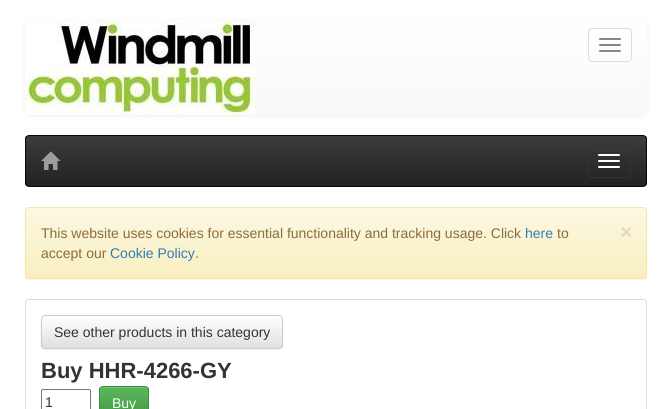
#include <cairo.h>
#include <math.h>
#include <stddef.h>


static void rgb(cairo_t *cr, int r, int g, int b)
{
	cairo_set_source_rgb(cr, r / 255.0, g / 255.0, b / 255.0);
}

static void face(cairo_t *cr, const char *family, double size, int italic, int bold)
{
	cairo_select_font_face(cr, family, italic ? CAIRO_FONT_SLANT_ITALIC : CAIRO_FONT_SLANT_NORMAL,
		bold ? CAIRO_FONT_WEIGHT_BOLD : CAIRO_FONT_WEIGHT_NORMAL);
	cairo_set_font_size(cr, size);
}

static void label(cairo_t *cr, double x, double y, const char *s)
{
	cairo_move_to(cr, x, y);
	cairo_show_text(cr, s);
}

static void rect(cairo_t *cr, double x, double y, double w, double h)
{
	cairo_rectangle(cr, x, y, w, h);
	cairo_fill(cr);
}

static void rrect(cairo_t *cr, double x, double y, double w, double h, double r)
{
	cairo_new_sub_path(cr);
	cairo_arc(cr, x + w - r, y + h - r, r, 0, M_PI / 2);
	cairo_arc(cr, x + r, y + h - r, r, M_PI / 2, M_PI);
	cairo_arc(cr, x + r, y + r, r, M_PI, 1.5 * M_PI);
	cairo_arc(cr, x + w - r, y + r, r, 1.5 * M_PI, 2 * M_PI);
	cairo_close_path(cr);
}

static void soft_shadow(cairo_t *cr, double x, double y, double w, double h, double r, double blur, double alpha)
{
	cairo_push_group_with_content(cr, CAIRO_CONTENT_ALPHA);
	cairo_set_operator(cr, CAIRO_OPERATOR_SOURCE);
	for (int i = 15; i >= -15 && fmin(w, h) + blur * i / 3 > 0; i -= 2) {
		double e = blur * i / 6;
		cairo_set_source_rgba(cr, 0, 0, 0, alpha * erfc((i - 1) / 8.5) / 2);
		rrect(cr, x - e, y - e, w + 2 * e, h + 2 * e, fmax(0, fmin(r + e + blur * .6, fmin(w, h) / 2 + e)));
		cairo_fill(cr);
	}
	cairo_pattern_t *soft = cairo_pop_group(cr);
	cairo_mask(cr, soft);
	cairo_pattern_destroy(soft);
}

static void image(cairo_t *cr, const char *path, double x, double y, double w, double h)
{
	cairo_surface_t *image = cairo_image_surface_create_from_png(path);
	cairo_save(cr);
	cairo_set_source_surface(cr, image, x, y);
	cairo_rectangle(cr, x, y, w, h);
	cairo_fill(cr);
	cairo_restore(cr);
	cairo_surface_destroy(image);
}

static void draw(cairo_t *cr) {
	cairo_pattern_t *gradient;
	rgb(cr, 255, 255, 255);
	cairo_paint(cr);
	rgb(cr, 0, 0, 0);
	soft_shadow(cr, 25, 21, 622, 95, 4, 2.5, 0.07);
	gradient = cairo_pattern_create_linear(336, 20, 336, 115);
	cairo_pattern_add_color_stop_rgba(gradient, 0, 1, 1, 1, 1);
	cairo_pattern_add_color_stop_rgba(gradient, 1, 0.973, 0.973, 0.973, 1);
	cairo_set_source(cr, gradient);
	cairo_pattern_destroy(gradient);
	rrect(cr, 25, 20, 622, 95, 4);
	cairo_fill(cr);
	image(cr, "image0.png", 25, 20, 230, 95);
	rrect(cr, 588.5, 28.5, 43, 33, 3.5);
	rgb(cr, 221, 221, 221);
	cairo_set_line_width(cr, 1);
	cairo_stroke(cr);
	rgb(cr, 136, 136, 136);
	rrect(cr, 599, 38, 22, 2, 1);
	cairo_fill(cr);
	rrect(cr, 599, 44, 22, 2, 1);
	cairo_fill(cr);
	rrect(cr, 599, 50, 22, 2, 1);
	cairo_fill(cr);
	cairo_save(cr);
	rrect(cr, 25, 135, 622, 52, 4);
	cairo_clip(cr);
	gradient = cairo_pattern_create_linear(336, 136, 336, 186);
	cairo_pattern_add_color_stop_rgba(gradient, 0, 0.235, 0.235, 0.235, 1);
	cairo_pattern_add_color_stop_rgba(gradient, 1, 0.133, 0.133, 0.133, 1);
	cairo_set_source(cr, gradient);
	cairo_pattern_destroy(gradient);
	rect(cr, 25, 136, 622, 50);
	cairo_restore(cr);
	rrect(cr, 25.5, 135.5, 621, 51, 3.5);
	rgb(cr, 8, 8, 8);
	cairo_stroke(cr);
	image(cr, "image1.png", 41, 151, 20, 19);
	rrect(cr, 587.5, 144.5, 43, 33, 3.5);
	rgb(cr, 51, 51, 51);
	cairo_stroke(cr);
	rgb(cr, 255, 255, 255);
	rrect(cr, 598, 154, 22, 2, 1);
	cairo_fill(cr);
	rrect(cr, 598, 160, 22, 2, 1);
	cairo_fill(cr);
	rrect(cr, 598, 166, 22, 2, 1);
	cairo_fill(cr);
	rgb(cr, 0, 0, 0);
	soft_shadow(cr, 25, 208, 622, 72, 4, 1, 0.05);
	cairo_save(cr);
	rrect(cr, 25, 207, 622, 72, 4);
	cairo_clip(cr);
	gradient = cairo_pattern_create_linear(336, 208, 336, 278);
	cairo_pattern_add_color_stop_rgba(gradient, 0, 0.988, 0.973, 0.89, 1);
	cairo_pattern_add_color_stop_rgba(gradient, 1, 0.973, 0.937, 0.753, 1);
	cairo_set_source(cr, gradient);
	cairo_pattern_destroy(gradient);
	rect(cr, 25, 208, 622, 70);
	cairo_restore(cr);
	rgb(cr, 253, 250, 234);
	cairo_new_path(cr);
	cairo_move_to(cr, 29, 209);
	cairo_line_to(cr, 643, 209);
	cairo_curve_to(cr, 645, 209, 646, 210, 646, 212);
	cairo_line_to(cr, 646, 211);
	cairo_curve_to(cr, 646, 209, 645, 208, 643, 208);
	cairo_line_to(cr, 29, 208);
	cairo_curve_to(cr, 27, 208, 26, 209, 26, 211);
	cairo_line_to(cr, 26, 212);
	cairo_curve_to(cr, 26, 210, 27, 209, 29, 209);
	cairo_close_path(cr);
	cairo_fill(cr);
	rrect(cr, 25.5, 207.5, 621, 71, 3.5);
	rgb(cr, 245, 231, 158);
	cairo_stroke(cr);
	face(cr, "Liberation Sans", 14, 0, 0);
	rgb(cr, 138, 109, 59);
	label(cr, 41, 238, "This website uses cookies for essential functionality and tracking usage. Click");
	rgb(cr, 51, 122, 183);
	label(cr, 525, 238, "here");
	rgb(cr, 138, 109, 59);
	label(cr, 557, 238, "to");
	face(cr, "Liberation Sans", 21, 0, 1);
	rgb(cr, 228, 218, 184);
	label(cr, 620, 239, "×");
	face(cr, "Liberation Sans", 14, 0, 0);
	rgb(cr, 138, 109, 59);
	label(cr, 41, 258, "accept our");
	rgb(cr, 51, 122, 183);
	label(cr, 110, 258, "Cookie Policy");
	rgb(cr, 138, 109, 59);
	label(cr, 195, 258, ".");
	rrect(cr, 25.5, 299.5, 621, 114, 3.5);
	rgb(cr, 221, 221, 221);
	cairo_stroke(cr);
	rgb(cr, 0, 0, 0);
	soft_shadow(cr, 41, 316, 242, 34, 4, 0.5, 0.07);
	cairo_save(cr);
	rrect(cr, 41, 315, 242, 34, 4);
	cairo_clip(cr);
	gradient = cairo_pattern_create_linear(162, 316, 162, 348);
	cairo_pattern_add_color_stop_rgba(gradient, 0, 1, 1, 1, 1);
	cairo_pattern_add_color_stop_rgba(gradient, 1, 0.878, 0.878, 0.878, 1);
	cairo_set_source(cr, gradient);
	cairo_pattern_destroy(gradient);
	rect(cr, 41, 316, 242, 32);
	cairo_restore(cr);
	rrect(cr, 41.5, 315.5, 241, 33, 3.5);
	rgb(cr, 204, 204, 204);
	cairo_stroke(cr);
	rgb(cr, 51, 51, 51);
	label(cr, 54, 337, "See other products in this category");
	face(cr, "Liberation Sans", 22, 0, 1);
	label(cr, 41, 378, "Buy HHR-4266-GY");
	rrect(cr, 41.5, 389.5, 49, 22, 1.5);
	rgb(cr, 118, 118, 118);
	cairo_stroke(cr);
	face(cr, "Liberation Sans", 14, 0, 0);
	rgb(cr, 51, 51, 51);
	label(cr, 45, 407, "1");
	cairo_save(cr);
	rrect(cr, 99, 386, 50, 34, 4);
	cairo_clip(cr);
	gradient = cairo_pattern_create_linear(124, 387, 124, 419);
	cairo_pattern_add_color_stop_rgba(gradient, 0, 0.361, 0.722, 0.361, 1);
	cairo_pattern_add_color_stop_rgba(gradient, 1, 0.255, 0.588, 0.255, 1);
	cairo_set_source(cr, gradient);
	cairo_pattern_destroy(gradient);
	rect(cr, 99, 387, 50, 22);
	cairo_restore(cr);
	rgb(cr, 116, 194, 116);
	cairo_new_path(cr);
	cairo_move_to(cr, 103, 388);
	cairo_line_to(cr, 145, 388);
	cairo_curve_to(cr, 147, 388, 148, 389, 148, 391);
	cairo_curve_to(cr, 148, 385, 142, 387, 138, 387);
	cairo_line_to(cr, 110, 387);
	cairo_curve_to(cr, 106, 387, 100, 385, 100, 391);
	cairo_curve_to(cr, 100, 389, 101, 388, 103, 388);
	cairo_close_path(cr);
	cairo_fill(cr);
	rrect(cr, 99.5, 386.5, 49, 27, 3.5);
	rgb(cr, 62, 143, 62);
	cairo_stroke(cr);
	rgb(cr, 255, 255, 255);
	label(cr, 112, 408, "Buy");
}

int main(void) {
	cairo_surface_t *surface = cairo_image_surface_create(CAIRO_FORMAT_RGB24, 672, 409);
	cairo_t *cr = cairo_create(surface);
	cairo_font_options_t *options = cairo_font_options_create();
	cairo_font_options_set_hint_metrics(options, CAIRO_HINT_METRICS_OFF);
	cairo_font_options_set_hint_style(options, CAIRO_HINT_STYLE_NONE);
	cairo_set_font_options(cr, options);
	cairo_set_miter_limit(cr, 4);
	draw(cr);
	cairo_surface_write_to_png(surface, "render.png");
	cairo_font_options_destroy(options);
	cairo_destroy(cr);
	cairo_surface_destroy(surface);
	return 0;
}
